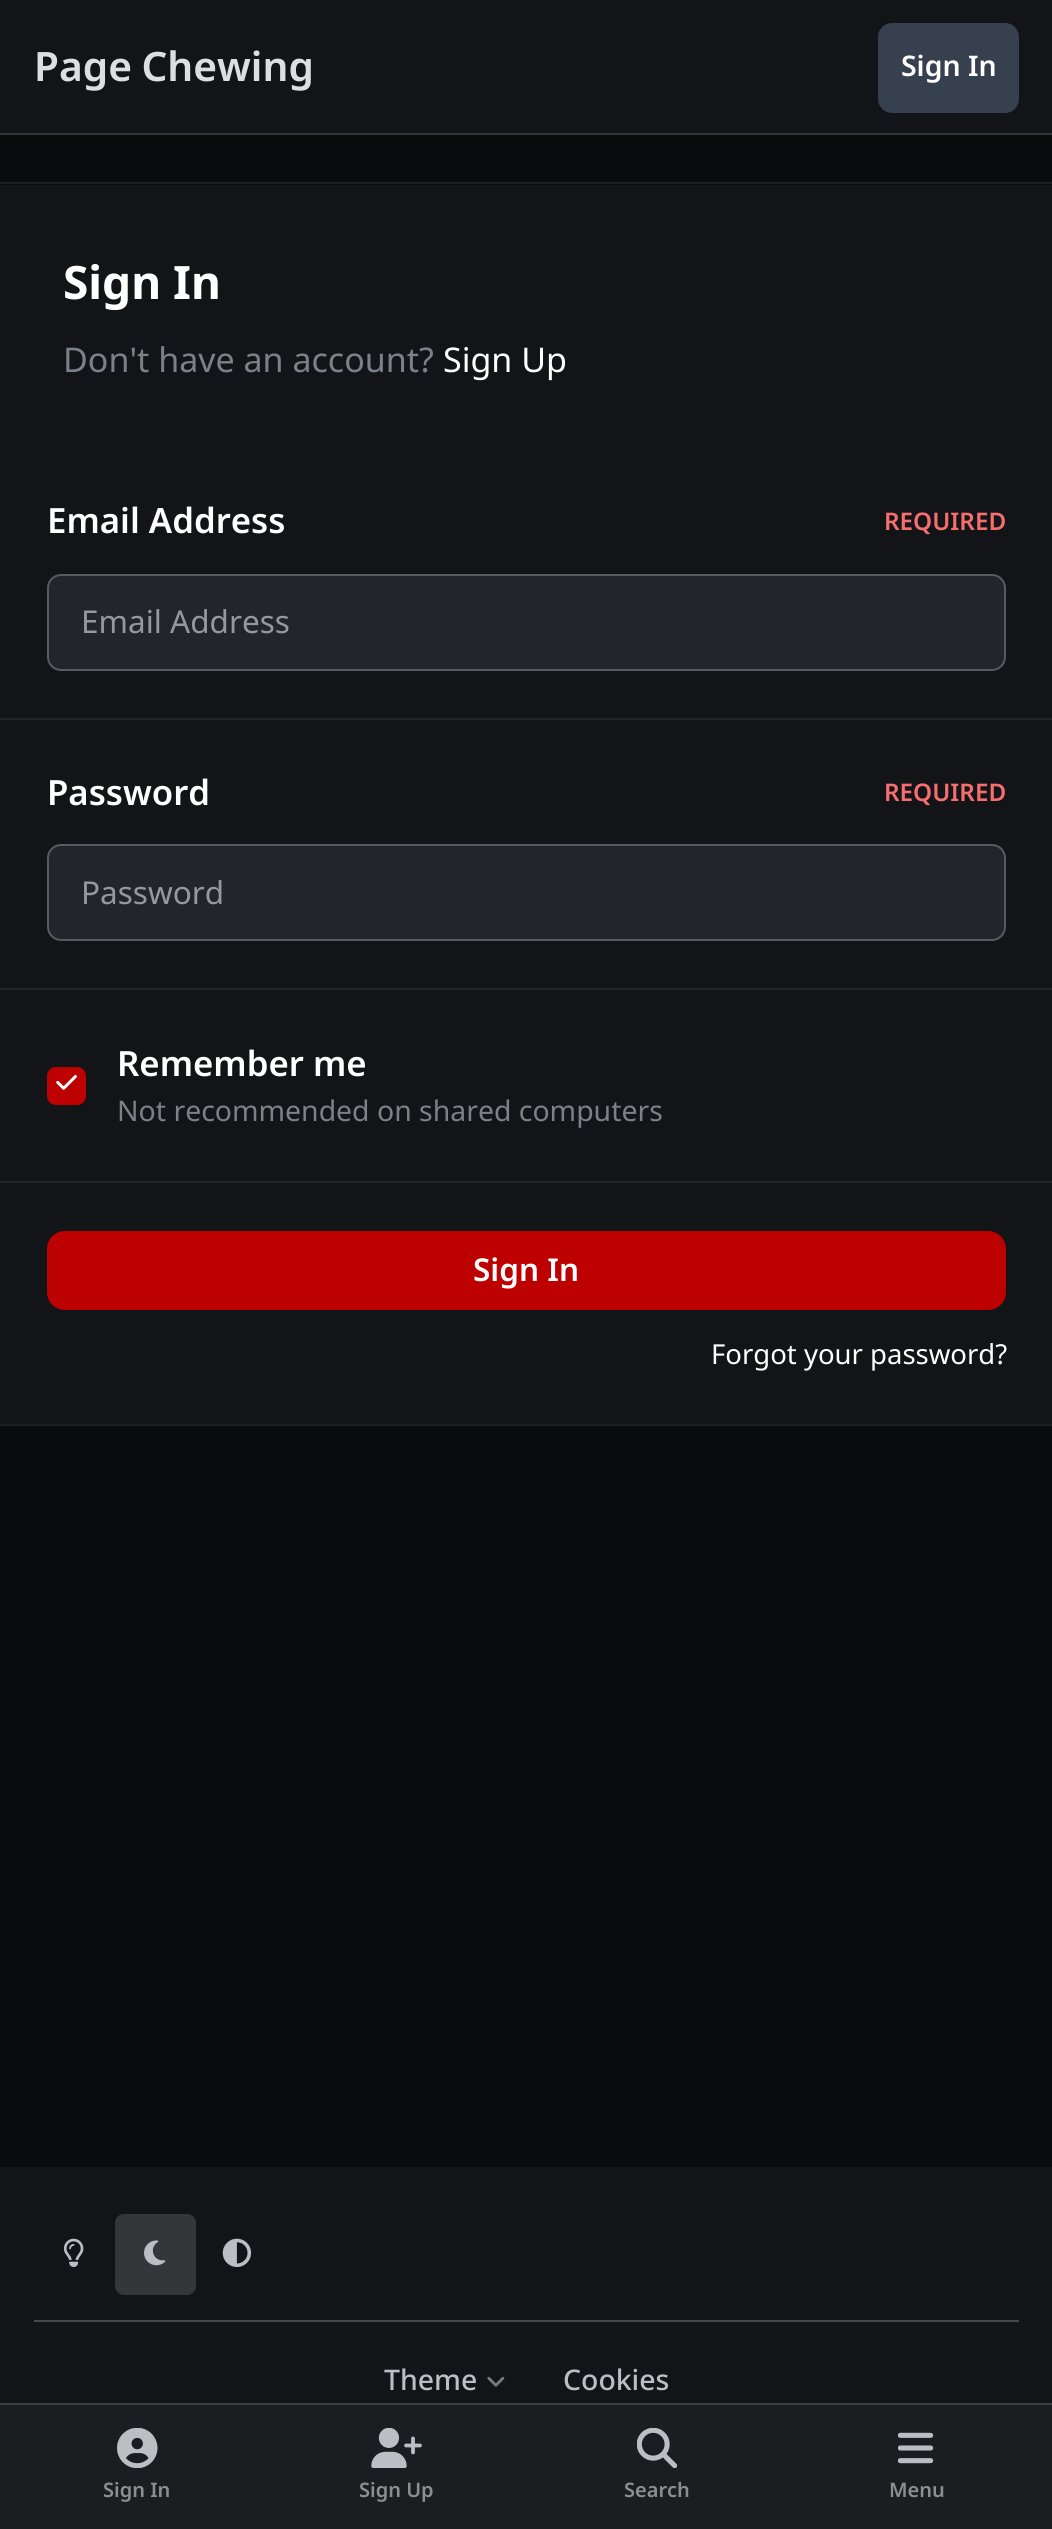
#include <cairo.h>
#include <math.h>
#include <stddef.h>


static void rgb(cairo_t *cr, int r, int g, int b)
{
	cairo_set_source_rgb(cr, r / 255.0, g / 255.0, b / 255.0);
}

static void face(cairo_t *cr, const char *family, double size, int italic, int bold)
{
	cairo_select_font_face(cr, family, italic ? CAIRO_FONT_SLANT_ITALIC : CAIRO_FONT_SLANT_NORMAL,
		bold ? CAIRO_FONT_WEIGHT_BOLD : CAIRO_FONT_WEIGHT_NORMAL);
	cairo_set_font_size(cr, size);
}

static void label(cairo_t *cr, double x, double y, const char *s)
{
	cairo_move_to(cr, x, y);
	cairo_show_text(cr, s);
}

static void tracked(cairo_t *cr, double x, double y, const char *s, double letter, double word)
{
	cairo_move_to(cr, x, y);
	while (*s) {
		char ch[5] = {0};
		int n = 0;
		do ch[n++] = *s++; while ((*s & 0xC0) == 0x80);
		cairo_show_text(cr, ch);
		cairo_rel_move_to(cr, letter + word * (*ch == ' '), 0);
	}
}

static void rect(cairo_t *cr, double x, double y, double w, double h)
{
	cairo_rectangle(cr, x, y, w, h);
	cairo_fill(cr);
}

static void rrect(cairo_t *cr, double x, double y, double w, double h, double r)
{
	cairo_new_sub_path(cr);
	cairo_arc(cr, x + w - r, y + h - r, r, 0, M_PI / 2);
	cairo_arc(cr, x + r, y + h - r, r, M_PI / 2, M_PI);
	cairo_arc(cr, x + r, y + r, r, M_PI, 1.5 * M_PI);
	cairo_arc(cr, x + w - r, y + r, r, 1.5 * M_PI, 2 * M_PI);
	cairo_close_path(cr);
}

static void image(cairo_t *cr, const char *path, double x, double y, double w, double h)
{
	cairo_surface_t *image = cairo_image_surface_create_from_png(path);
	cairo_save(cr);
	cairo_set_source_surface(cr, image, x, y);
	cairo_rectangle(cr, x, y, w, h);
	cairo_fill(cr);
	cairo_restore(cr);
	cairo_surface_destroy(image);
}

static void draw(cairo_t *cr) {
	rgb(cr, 10, 11, 13);
	cairo_paint(cr);
	rgb(cr, 19, 20, 23);
	rect(cr, 0, 0, 1052, 133);
	rgb(cr, 54, 55, 58);
	rect(cr, 0, 133, 1052, 2);
	face(cr, "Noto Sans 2 SemiBold", 40.5, 0, 0);
	rgb(cr, 221, 222, 224);
	tracked(cr, 34, 81, "Page Chewing", 0, -1);
	rgb(cr, 54, 64, 78);
	rrect(cr, 878, 23, 141, 90, 14);
	cairo_fill(cr);
	face(cr, "Noto Sans SemiBold", 28.4, 0, 0);
	rgb(cr, 255, 255, 255);
	label(cr, 901, 76, "Sign In");
	rgb(cr, 19, 20, 23);
	rect(cr, 0, 185, 1052, 1239);
	rgb(cr, 27, 29, 33);
	rect(cr, 0, 182, 1052, 2);
	rect(cr, 0, 1424, 1052, 2);
	face(cr, "Noto Sans", 46, 0, 1);
	rgb(cr, 255, 255, 255);
	label(cr, 63, 299, "Sign In");
	face(cr, "Noto Sans", 34, 0, 0);
	rgb(cr, 124, 128, 137);
	label(cr, 63, 372, "Don't have an account?");
	rgb(cr, 255, 255, 255);
	label(cr, 443, 372, "Sign Up");
	rgb(cr, 36, 37, 40);
	rect(cr, 0, 718, 1052, 2);
	face(cr, "Noto Sans SemiBold", 34.75, 0, 0);
	rgb(cr, 255, 255, 255);
	label(cr, 47, 533, "Email Address");
	face(cr, "Noto Sans SemiBold", 24.25, 0, 0);
	rgb(cr, 247, 110, 110);
	label(cr, 884, 530, "REQUIRED");
	rgb(cr, 35, 37, 42);
	rrect(cr, 47, 574, 959, 97, 14);
	cairo_fill(cr);
	rrect(cr, 48, 575, 957, 95, 13);
	cairo_set_source_rgba(cr, 0.737, 0.745, 0.765, 0.35);
	cairo_stroke(cr);
	face(cr, "Noto Sans", 31.5, 0, 0);
	rgb(cr, 150, 152, 157);
	label(cr, 81, 633, "Email Address");
	rgb(cr, 36, 37, 40);
	rect(cr, 0, 988, 1052, 2);
	face(cr, "Noto Sans SemiBold", 34.75, 0, 0);
	rgb(cr, 255, 255, 255);
	label(cr, 47, 805, "Password");
	face(cr, "Noto Sans SemiBold", 24.25, 0, 0);
	rgb(cr, 247, 110, 110);
	label(cr, 884, 801, "REQUIRED");
	rgb(cr, 35, 37, 42);
	rrect(cr, 47, 844, 959, 97, 14);
	cairo_fill(cr);
	rrect(cr, 48, 845, 957, 95, 13);
	cairo_set_source_rgba(cr, 0.737, 0.745, 0.765, 0.35);
	cairo_stroke(cr);
	face(cr, "Noto Sans", 31.5, 0, 0);
	rgb(cr, 150, 152, 157);
	label(cr, 81, 904, "Password");
	rgb(cr, 36, 37, 40);
	rect(cr, 0, 1181, 1052, 2);
	rgb(cr, 189, 0, 0);
	rrect(cr, 47, 1067, 39, 38, 9);
	cairo_fill(cr);
	image(cr, "image0.png", 56, 1075, 21, 15);
	face(cr, "Noto Sans SemiBold", 34.75, 0, 0);
	rgb(cr, 255, 255, 255);
	label(cr, 117, 1076, "Remember me");
	face(cr, "Noto Sans", 28.4, 0, 0);
	rgb(cr, 124, 128, 137);
	label(cr, 117, 1121, "Not recommended on shared computers");
	rgb(cr, 189, 0, 0);
	rrect(cr, 47, 1231, 959, 79, 18);
	cairo_fill(cr);
	face(cr, "Noto Sans SemiBold", 31.5, 0, 0);
	rgb(cr, 255, 255, 255);
	label(cr, 473, 1281, "Sign In");
	face(cr, "Noto Sans", 27.5, 0, 0);
	label(cr, 711, 1364, "Forgot your password?");
	rgb(cr, 19, 20, 23);
	rect(cr, 0, 2167, 1052, 236);
	image(cr, "image1.png", 63, 2238, 21, 29);
	rgb(cr, 53, 54, 57);
	rrect(cr, 115, 2214, 81, 81, 9);
	cairo_fill(cr);
	image(cr, "image2.png", 144, 2240, 22, 26);
	image(cr, "image3.png", 222, 2238, 30, 29);
	rgb(cr, 70, 71, 75);
	rect(cr, 34, 2320, 985, 2);
	face(cr, "Noto Sans Medium", 28.4, 0, 0);
	rgb(cr, 188, 190, 195);
	label(cr, 384, 2390, "Theme");
	image(cr, "image4.png", 487, 2376, 18, 11);
	label(cr, 563, 2390, "Cookies");
	rgb(cr, 61, 63, 66);
	rect(cr, 0, 2403, 1052, 2);
	rgb(cr, 27, 29, 33);
	rect(cr, 0, 2405, 1052, 124);
	image(cr, "image5.png", 117, 2428, 41, 40);
	face(cr, "Noto Sans SemiBold", 20, 0, 0);
	rgb(cr, 140, 142, 146);
	label(cr, 103, 2497, "Sign In");
	image(cr, "image6.png", 371, 2428, 51, 40);
	label(cr, 359, 2497, "Sign Up");
	image(cr, "image7.png", 637, 2428, 40, 40);
	label(cr, 624, 2497, "Search");
	image(cr, "image8.png", 898, 2432, 36, 32);
	label(cr, 889, 2497, "Menu");
}

int main(void) {
	cairo_surface_t *surface = cairo_image_surface_create(CAIRO_FORMAT_RGB24, 1052, 2529);
	cairo_t *cr = cairo_create(surface);
	cairo_font_options_t *options = cairo_font_options_create();
	cairo_font_options_set_hint_metrics(options, CAIRO_HINT_METRICS_OFF);
	cairo_font_options_set_hint_style(options, CAIRO_HINT_STYLE_NONE);
	cairo_set_font_options(cr, options);
	cairo_set_miter_limit(cr, 4);
	draw(cr);
	cairo_surface_write_to_png(surface, "render.png");
	cairo_font_options_destroy(options);
	cairo_destroy(cr);
	cairo_surface_destroy(surface);
	return 0;
}
